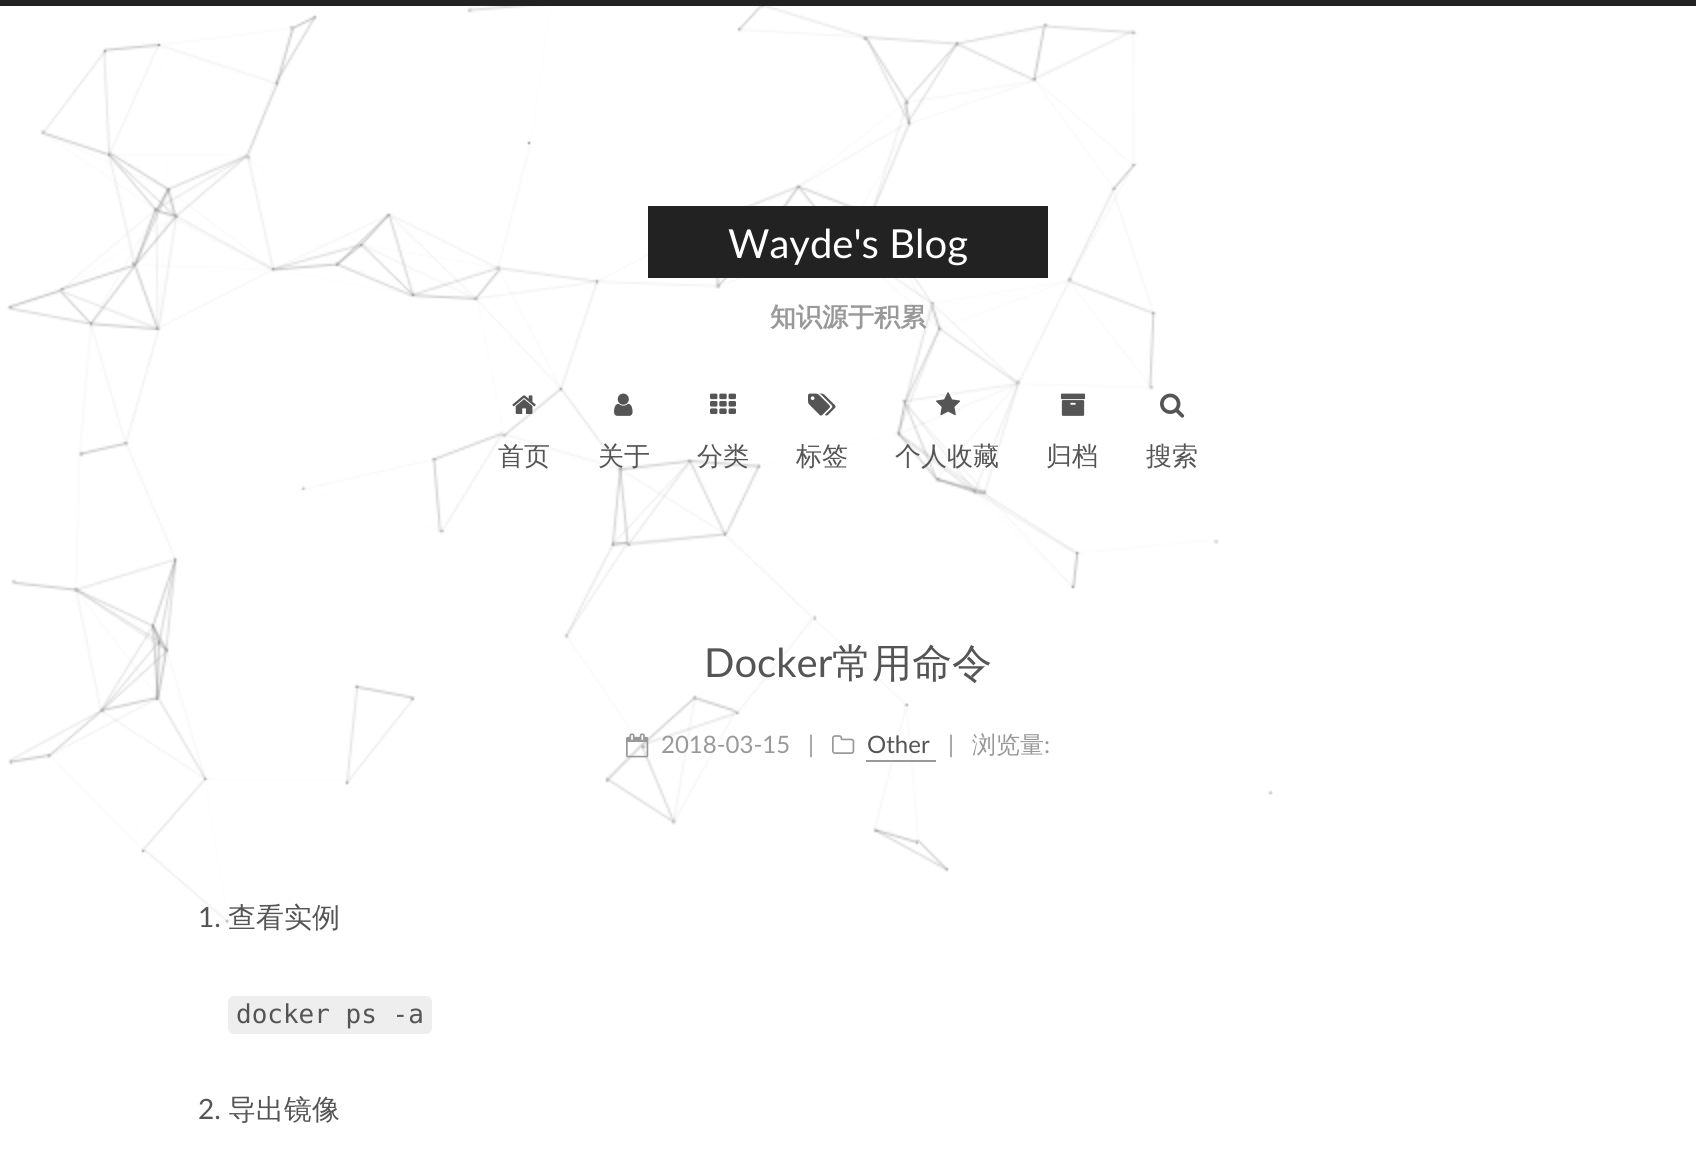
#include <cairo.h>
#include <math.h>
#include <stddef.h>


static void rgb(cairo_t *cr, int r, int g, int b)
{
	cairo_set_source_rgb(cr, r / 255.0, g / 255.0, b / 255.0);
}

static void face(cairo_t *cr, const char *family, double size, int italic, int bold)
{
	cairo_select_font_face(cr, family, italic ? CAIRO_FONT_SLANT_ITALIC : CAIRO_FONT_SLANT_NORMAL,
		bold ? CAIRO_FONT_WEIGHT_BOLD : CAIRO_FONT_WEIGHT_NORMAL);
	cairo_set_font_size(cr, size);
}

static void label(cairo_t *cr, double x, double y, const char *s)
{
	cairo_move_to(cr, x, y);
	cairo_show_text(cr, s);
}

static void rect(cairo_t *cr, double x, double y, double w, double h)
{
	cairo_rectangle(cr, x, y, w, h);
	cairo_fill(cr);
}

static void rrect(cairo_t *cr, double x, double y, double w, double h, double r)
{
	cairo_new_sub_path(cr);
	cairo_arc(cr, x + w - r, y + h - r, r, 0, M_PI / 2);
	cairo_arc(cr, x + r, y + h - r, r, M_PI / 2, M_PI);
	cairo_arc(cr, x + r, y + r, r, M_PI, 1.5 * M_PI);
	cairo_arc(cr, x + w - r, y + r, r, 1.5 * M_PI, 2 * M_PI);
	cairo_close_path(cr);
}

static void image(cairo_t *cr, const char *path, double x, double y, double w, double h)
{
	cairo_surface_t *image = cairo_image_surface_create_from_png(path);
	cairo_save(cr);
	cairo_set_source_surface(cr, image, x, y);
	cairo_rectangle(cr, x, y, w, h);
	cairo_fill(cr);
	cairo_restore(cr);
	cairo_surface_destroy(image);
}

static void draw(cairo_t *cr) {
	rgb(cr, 255, 255, 255);
	cairo_paint(cr);
	image(cr, "image0.png", 7, 6, 1266, 918);
	rgb(cr, 34, 34, 34);
	rect(cr, 0, 0, 1696, 6);
	rect(cr, 648, 206, 400, 72);
	face(cr, "Lato", 40, 0, 0);
	rgb(cr, 255, 255, 255);
	label(cr, 728, 258, "Wayde's Blog");
	face(cr, "WenQuanYi Zen Hei", 26, 0, 1);
	rgb(cr, 153, 153, 153);
	label(cr, 770, 326, "知识源于积累");
	image(cr, "image1.png", 512, 395, 24, 19);
	face(cr, "WenQuanYi Zen Hei Medium", 26, 0, 0);
	rgb(cr, 85, 85, 85);
	label(cr, 498, 465, "首页");
	image(cr, "image2.png", 614, 393, 19, 23);
	label(cr, 598, 465, "关于");
	image(cr, "image3.png", 710, 393, 26, 21);
	label(cr, 697, 465, "分类");
	image(cr, "image4.png", 808, 393, 28, 23);
	label(cr, 796, 465, "标签");
	image(cr, "image5.png", 936, 392, 25, 24);
	label(cr, 895, 465, "个人收藏");
	image(cr, "image6.png", 1060, 393, 26, 23);
	label(cr, 1046, 465, "归档");
	image(cr, "image7.png", 1160, 393, 25, 25);
	label(cr, 1146, 465, "搜索");
	face(cr, "Lato", 40, 0, 0);
	label(cr, 704, 677, "Docker");
	face(cr, "WenQuanYi Zen Hei Medium", 40, 0, 0);
	label(cr, 832, 677, "常用命令");
	image(cr, "image8.png", 626, 733, 23, 25);
	face(cr, "Lato", 24, 0, 0);
	rgb(cr, 153, 153, 153);
	label(cr, 661, 753, "2018-03-15");
	label(cr, 808, 753, "|");
	image(cr, "image9.png", 832, 735, 23, 19);
	rgb(cr, 85, 85, 85);
	label(cr, 867, 753, "Other");
	rgb(cr, 153, 153, 153);
	rect(cr, 866, 760, 70, 2);
	label(cr, 948, 753, "|");
	face(cr, "WenQuanYi Zen Hei Medium", 24, 0, 0);
	label(cr, 972, 753, "浏览量");
	face(cr, "Lato", 24, 0, 0);
	label(cr, 1044, 753, ":");
	face(cr, "Lato", 28, 0, 0);
	rgb(cr, 85, 85, 85);
	label(cr, 198, 927, "1.");
	face(cr, "WenQuanYi Zen Hei Medium", 28, 0, 0);
	label(cr, 228, 927, "查看实例");
	rgb(cr, 238, 238, 238);
	rrect(cr, 228, 996, 204, 38, 6);
	cairo_fill(cr);
	face(cr, "DejaVu Sans Mono", 26, 0, 0);
	rgb(cr, 85, 85, 85);
	label(cr, 236, 1023, "docker ps -a");
	face(cr, "Lato", 28, 0, 0);
	label(cr, 198, 1119, "2.");
	face(cr, "WenQuanYi Zen Hei Medium", 28, 0, 0);
	label(cr, 228, 1119, "导出镜像");
}

int main(void) {
	cairo_surface_t *surface = cairo_image_surface_create(CAIRO_FORMAT_RGB24, 1696, 1153);
	cairo_t *cr = cairo_create(surface);
	cairo_font_options_t *options = cairo_font_options_create();
	cairo_font_options_set_hint_metrics(options, CAIRO_HINT_METRICS_OFF);
	cairo_font_options_set_hint_style(options, CAIRO_HINT_STYLE_NONE);
	cairo_set_font_options(cr, options);
	cairo_set_miter_limit(cr, 4);
	draw(cr);
	cairo_surface_write_to_png(surface, "render.png");
	cairo_font_options_destroy(options);
	cairo_destroy(cr);
	cairo_surface_destroy(surface);
	return 0;
}
